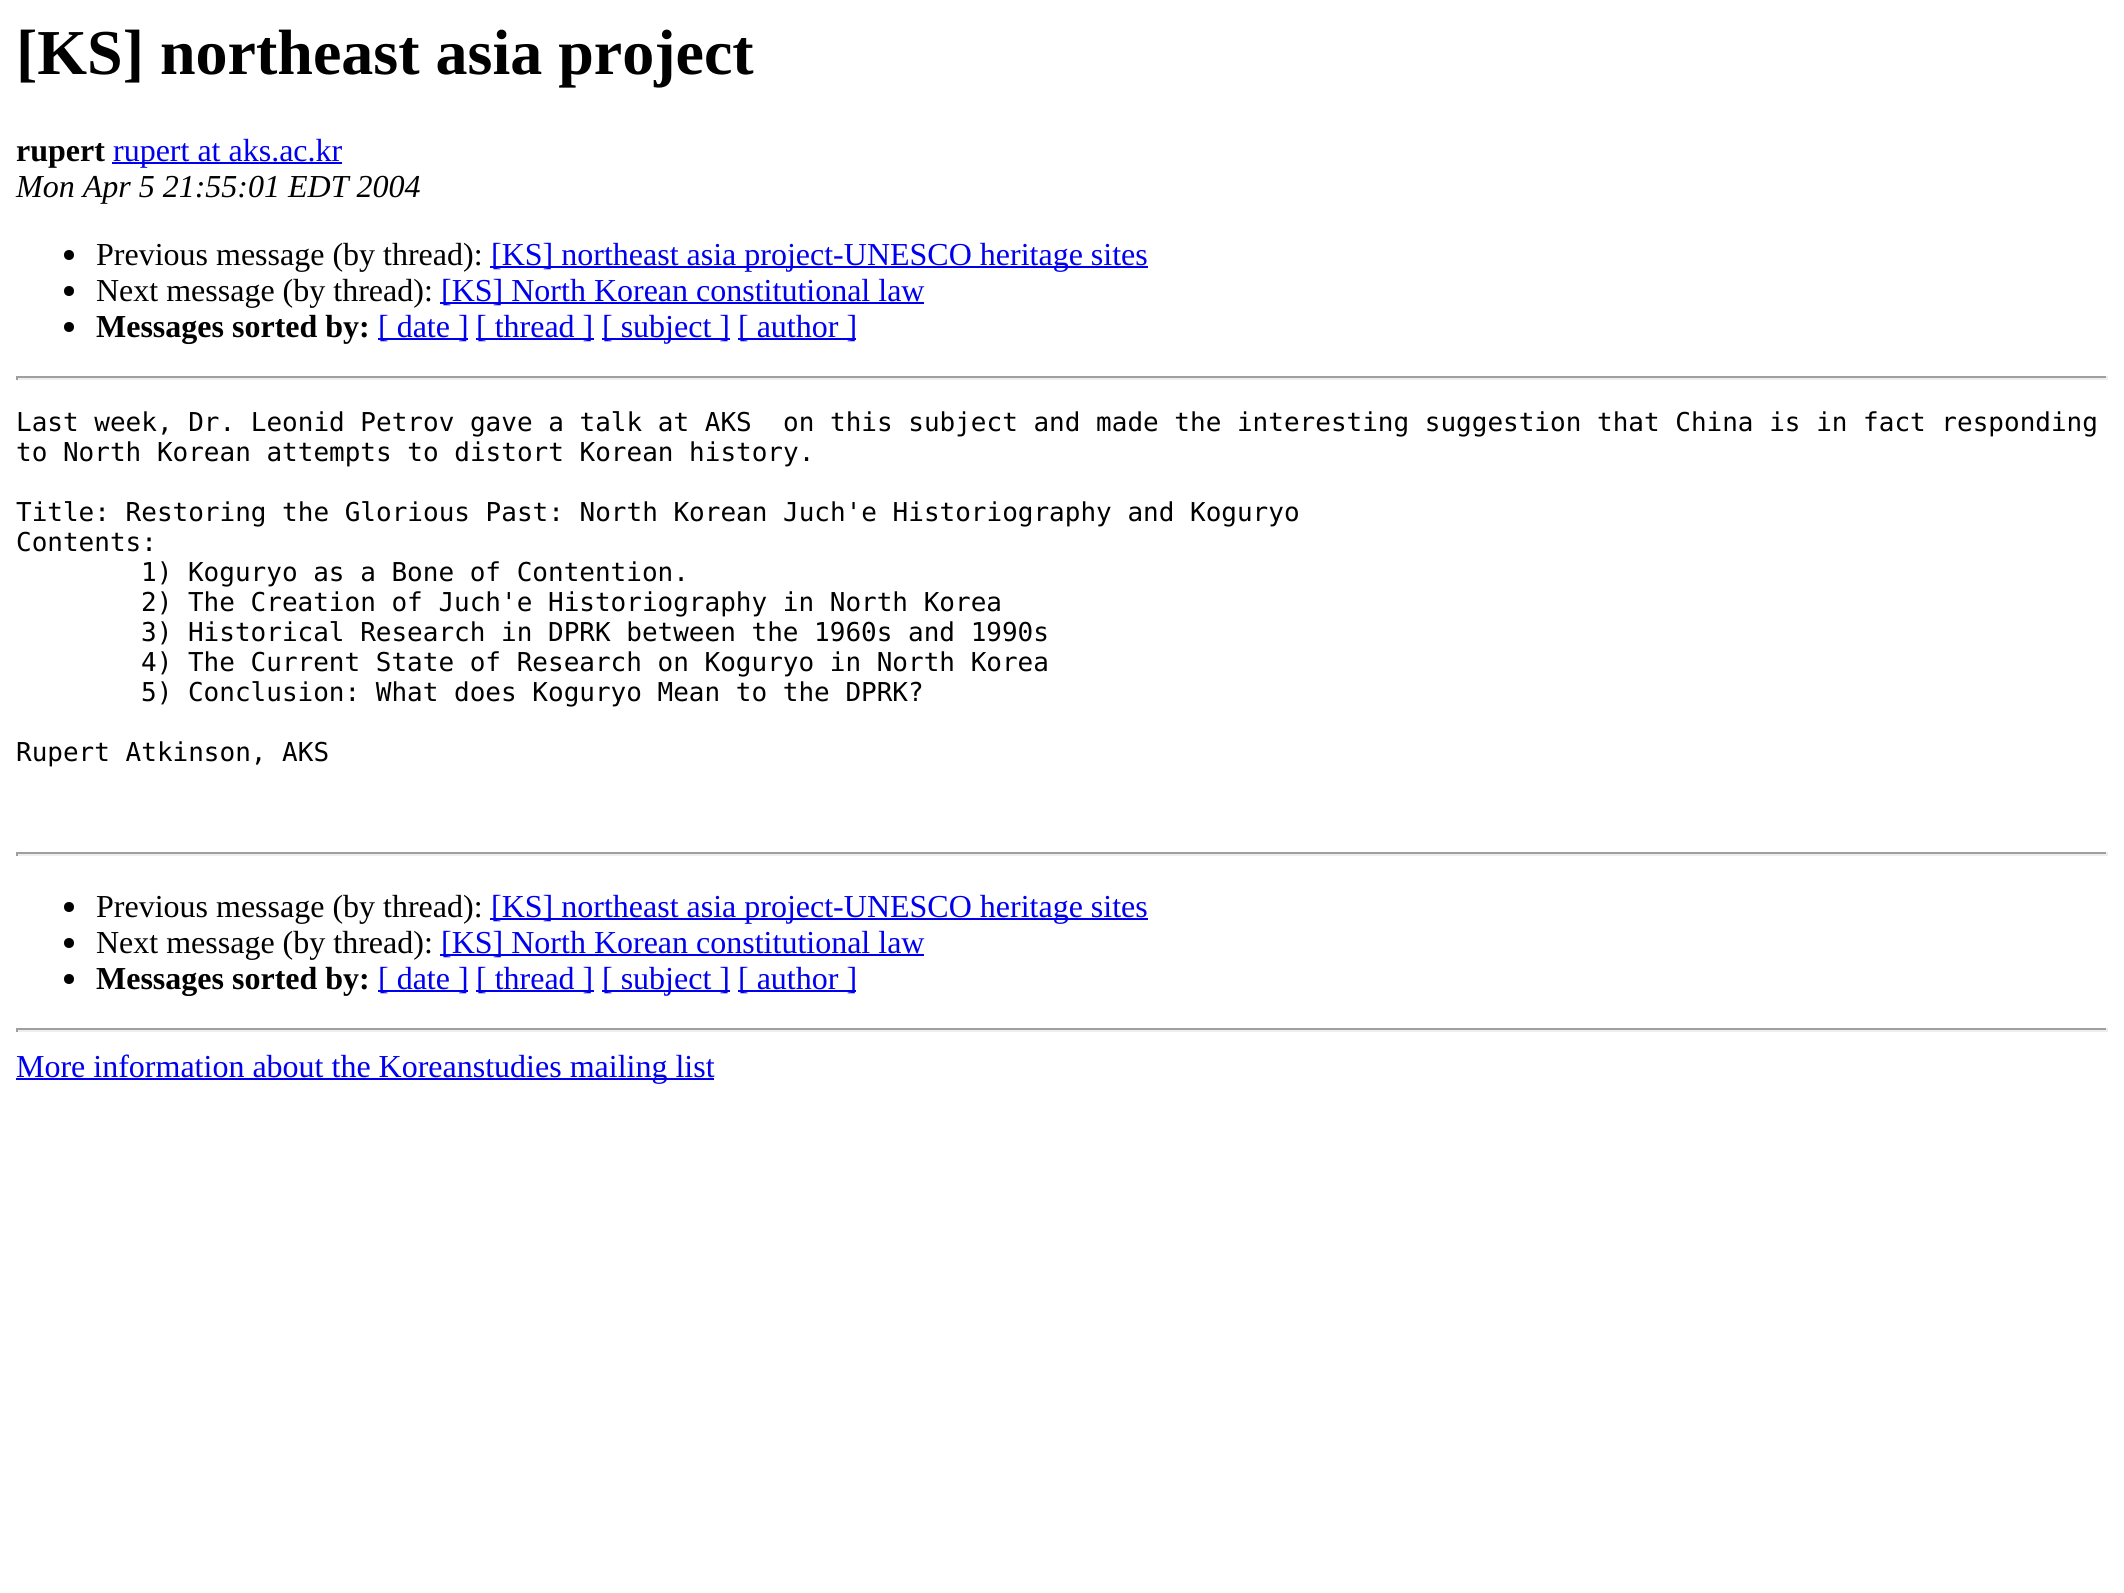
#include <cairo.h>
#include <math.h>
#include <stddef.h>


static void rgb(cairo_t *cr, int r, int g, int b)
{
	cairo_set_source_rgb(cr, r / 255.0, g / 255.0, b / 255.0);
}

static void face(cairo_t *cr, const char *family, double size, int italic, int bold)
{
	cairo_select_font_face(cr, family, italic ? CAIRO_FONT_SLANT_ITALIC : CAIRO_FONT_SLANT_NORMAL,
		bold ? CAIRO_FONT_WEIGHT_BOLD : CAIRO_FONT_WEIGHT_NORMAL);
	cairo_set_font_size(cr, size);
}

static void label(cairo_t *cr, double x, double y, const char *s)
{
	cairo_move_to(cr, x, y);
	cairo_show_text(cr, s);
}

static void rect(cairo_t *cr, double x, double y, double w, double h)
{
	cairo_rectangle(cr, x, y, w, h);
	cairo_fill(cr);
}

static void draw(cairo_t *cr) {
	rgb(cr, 255, 255, 255);
	cairo_paint(cr);
	face(cr, "Liberation Serif", 64, 0, 1);
	rgb(cr, 0, 0, 0);
	label(cr, 16, 74, "[KS] northeast asia project");
	face(cr, "Liberation Serif", 32, 0, 1);
	label(cr, 16, 161, "rupert");
	rgb(cr, 0, 0, 238);
	rect(cr, 112, 162, 230, 2);
	face(cr, "Liberation Serif", 32, 0, 0);
	label(cr, 113, 161, "rupert at aks.ac.kr");
	face(cr, "Liberation Serif", 32, 1, 0);
	rgb(cr, 0, 0, 0);
	label(cr, 16, 197, "Mon Apr 5 21:55:01 EDT 2004");
	cairo_new_path(cr);
	cairo_arc(cr, 69, 255, 5, 0, 2 * M_PI);
	cairo_fill(cr);
	face(cr, "Liberation Serif", 32, 0, 0);
	label(cr, 96, 265, "Previous message (by thread):");
	rgb(cr, 0, 0, 238);
	rect(cr, 490, 266, 658, 2);
	label(cr, 491, 265, "[KS] northeast asia project-UNESCO heritage sites");
	rgb(cr, 0, 0, 0);
	cairo_new_path(cr);
	cairo_arc(cr, 69, 291, 5, 0, 2 * M_PI);
	cairo_fill(cr);
	label(cr, 96, 301, "Next message (by thread):");
	rgb(cr, 0, 0, 238);
	rect(cr, 440, 302, 484, 2);
	label(cr, 441, 301, "[KS] North Korean constitutional law");
	rgb(cr, 0, 0, 0);
	cairo_new_path(cr);
	cairo_arc(cr, 69, 327, 5, 0, 2 * M_PI);
	cairo_fill(cr);
	face(cr, "Liberation Serif", 32, 0, 1);
	label(cr, 96, 337, "Messages sorted by:");
	rgb(cr, 0, 0, 238);
	rect(cr, 378, 338, 90, 2);
	face(cr, "Liberation Serif", 32, 0, 0);
	label(cr, 378, 337, "[ date ]");
	rect(cr, 476, 338, 118, 2);
	label(cr, 476, 337, "[ thread ]");
	rect(cr, 602, 338, 128, 2);
	label(cr, 602, 337, "[ subject ]");
	rect(cr, 738, 338, 118, 2);
	label(cr, 738, 337, "[ author ]");
	rgb(cr, 159, 159, 159);
	rect(cr, 16, 376, 2092, 2);
	rgb(cr, 238, 238, 238);
	rect(cr, 2106, 376, 2, 4);
	rect(cr, 16, 378, 2092, 2);
	rgb(cr, 159, 159, 159);
	rect(cr, 16, 376, 2, 4);
	face(cr, "DejaVu Sans Mono", 26, 0, 0);
	rgb(cr, 0, 0, 0);
	label(cr, 16, 431, "Last week, Dr. Leonid Petrov gave a talk at AKS  on this subject and made the interesting suggestion that China is in fact responding");
	label(cr, 16, 461, "to North Korean attempts to distort Korean history.");
	label(cr, 16, 521, "Title: Restoring the Glorious Past: North Korean Juch'e Historiography and Koguryo");
	label(cr, 16, 551, "Contents:");
	label(cr, 141, 581, "1) Koguryo as a Bone of Contention.");
	label(cr, 141, 611, "2) The Creation of Juch'e Historiography in North Korea");
	label(cr, 141, 641, "3) Historical Research in DPRK between the 1960s and 1990s");
	label(cr, 141, 671, "4) The Current State of Research on Koguryo in North Korea");
	label(cr, 141, 701, "5) Conclusion: What does Koguryo Mean to the DPRK?");
	label(cr, 16, 761, "Rupert Atkinson, AKS");
	rgb(cr, 159, 159, 159);
	rect(cr, 16, 852, 2092, 2);
	rgb(cr, 238, 238, 238);
	rect(cr, 2106, 852, 2, 4);
	rect(cr, 16, 854, 2092, 2);
	rgb(cr, 159, 159, 159);
	rect(cr, 16, 852, 2, 4);
	rgb(cr, 0, 0, 0);
	cairo_new_path(cr);
	cairo_arc(cr, 69, 907, 5, 0, 2 * M_PI);
	cairo_fill(cr);
	face(cr, "Liberation Serif", 32, 0, 0);
	label(cr, 96, 917, "Previous message (by thread):");
	rgb(cr, 0, 0, 238);
	rect(cr, 490, 918, 658, 2);
	label(cr, 491, 917, "[KS] northeast asia project-UNESCO heritage sites");
	rgb(cr, 0, 0, 0);
	cairo_new_path(cr);
	cairo_arc(cr, 69, 943, 5, 0, 2 * M_PI);
	cairo_fill(cr);
	label(cr, 96, 953, "Next message (by thread):");
	rgb(cr, 0, 0, 238);
	rect(cr, 440, 954, 484, 2);
	label(cr, 441, 953, "[KS] North Korean constitutional law");
	rgb(cr, 0, 0, 0);
	cairo_new_path(cr);
	cairo_arc(cr, 69, 979, 5, 0, 2 * M_PI);
	cairo_fill(cr);
	face(cr, "Liberation Serif", 32, 0, 1);
	label(cr, 96, 989, "Messages sorted by:");
	rgb(cr, 0, 0, 238);
	rect(cr, 378, 990, 90, 2);
	face(cr, "Liberation Serif", 32, 0, 0);
	label(cr, 378, 989, "[ date ]");
	rect(cr, 476, 990, 118, 2);
	label(cr, 476, 989, "[ thread ]");
	rect(cr, 602, 990, 128, 2);
	label(cr, 602, 989, "[ subject ]");
	rect(cr, 738, 990, 118, 2);
	label(cr, 738, 989, "[ author ]");
	rgb(cr, 159, 159, 159);
	rect(cr, 16, 1028, 2092, 2);
	rgb(cr, 238, 238, 238);
	rect(cr, 2106, 1028, 2, 4);
	rect(cr, 16, 1030, 2092, 2);
	rgb(cr, 159, 159, 159);
	rect(cr, 16, 1028, 2, 4);
	rgb(cr, 0, 0, 238);
	rect(cr, 16, 1078, 698, 2);
	label(cr, 16, 1077, "More information about the Koreanstudies mailing list");
}

int main(void) {
	cairo_surface_t *surface = cairo_image_surface_create(CAIRO_FORMAT_RGB24, 2124, 1593);
	cairo_t *cr = cairo_create(surface);
	cairo_font_options_t *options = cairo_font_options_create();
	cairo_font_options_set_hint_metrics(options, CAIRO_HINT_METRICS_OFF);
	cairo_font_options_set_hint_style(options, CAIRO_HINT_STYLE_NONE);
	cairo_set_font_options(cr, options);
	cairo_set_miter_limit(cr, 4);
	draw(cr);
	cairo_surface_write_to_png(surface, "render.png");
	cairo_font_options_destroy(options);
	cairo_destroy(cr);
	cairo_surface_destroy(surface);
	return 0;
}
